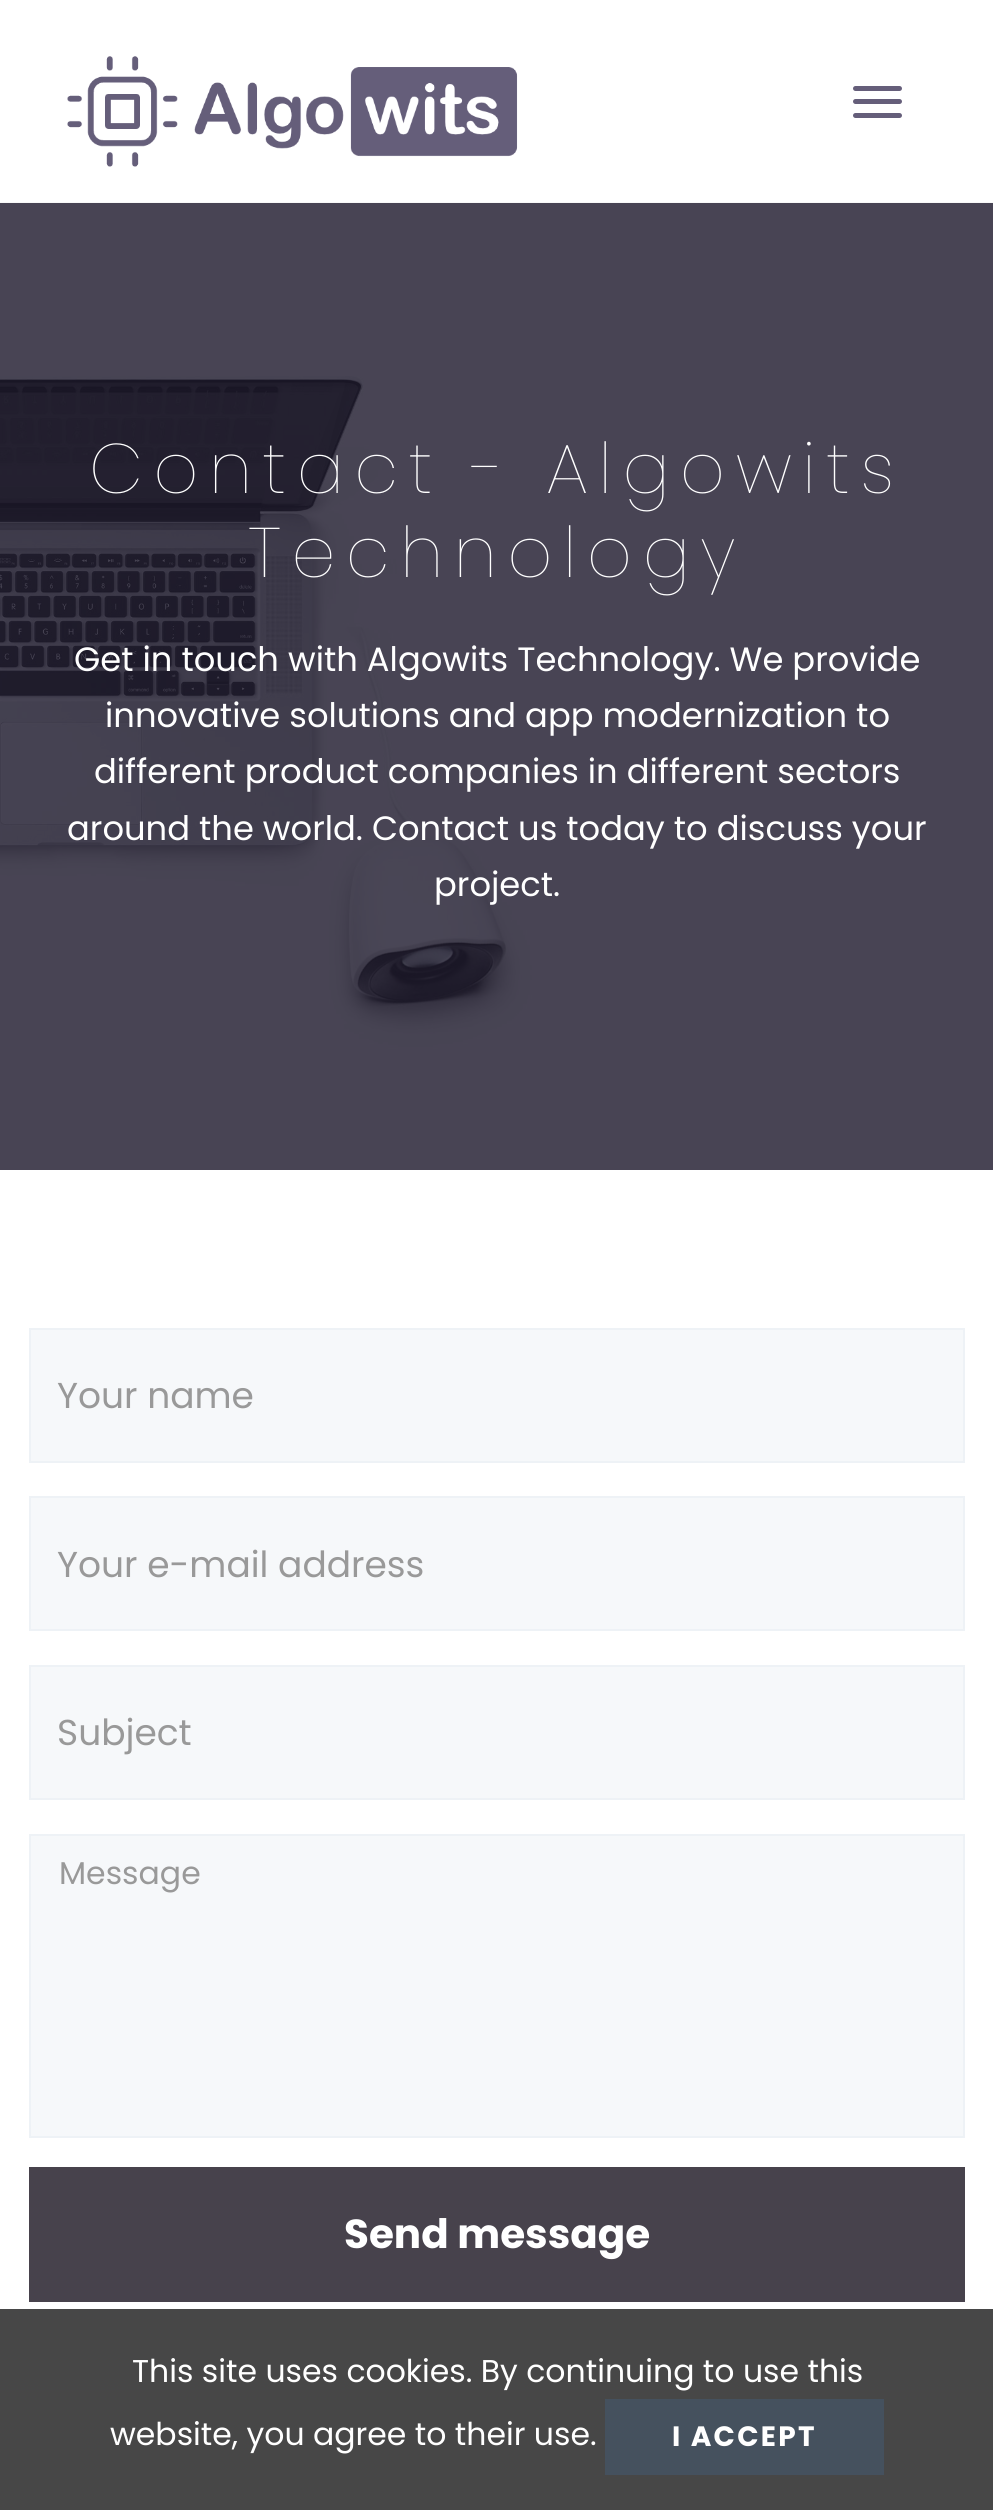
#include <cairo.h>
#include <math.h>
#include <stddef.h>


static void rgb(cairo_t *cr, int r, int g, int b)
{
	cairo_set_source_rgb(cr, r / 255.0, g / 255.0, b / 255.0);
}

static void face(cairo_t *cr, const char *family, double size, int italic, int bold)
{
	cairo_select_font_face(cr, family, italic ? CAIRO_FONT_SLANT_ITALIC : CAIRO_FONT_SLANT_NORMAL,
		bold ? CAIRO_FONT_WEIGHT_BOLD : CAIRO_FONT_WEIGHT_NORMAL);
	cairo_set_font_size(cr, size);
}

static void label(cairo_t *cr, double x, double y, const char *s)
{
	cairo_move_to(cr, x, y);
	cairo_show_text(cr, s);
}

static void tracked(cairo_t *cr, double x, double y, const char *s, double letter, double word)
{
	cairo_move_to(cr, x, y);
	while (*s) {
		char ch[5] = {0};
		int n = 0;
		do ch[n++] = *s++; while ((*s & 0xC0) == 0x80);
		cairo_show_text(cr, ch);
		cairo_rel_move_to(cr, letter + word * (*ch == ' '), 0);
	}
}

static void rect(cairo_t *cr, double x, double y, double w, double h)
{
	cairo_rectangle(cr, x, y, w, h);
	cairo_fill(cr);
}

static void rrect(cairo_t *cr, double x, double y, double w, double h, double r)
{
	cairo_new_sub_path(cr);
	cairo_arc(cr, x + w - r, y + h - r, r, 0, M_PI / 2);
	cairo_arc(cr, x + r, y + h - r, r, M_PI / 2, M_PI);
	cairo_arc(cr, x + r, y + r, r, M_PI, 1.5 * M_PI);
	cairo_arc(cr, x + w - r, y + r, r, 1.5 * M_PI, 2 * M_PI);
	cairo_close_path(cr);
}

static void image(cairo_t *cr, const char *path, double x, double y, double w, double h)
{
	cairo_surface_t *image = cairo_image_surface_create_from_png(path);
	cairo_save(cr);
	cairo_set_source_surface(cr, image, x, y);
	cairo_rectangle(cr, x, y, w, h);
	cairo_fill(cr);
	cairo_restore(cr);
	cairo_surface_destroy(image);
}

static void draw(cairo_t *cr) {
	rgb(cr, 255, 255, 255);
	cairo_paint(cr);
	image(cr, "image0.png", 67, 56, 451, 111);
	rgb(cr, 101, 94, 122);
	rrect(cr, 853, 86, 49, 5, 2.5);
	cairo_fill(cr);
	rrect(cr, 853, 99, 49, 5, 2.5);
	cairo_fill(cr);
	rrect(cr, 853, 113, 49, 5, 2.5);
	cairo_fill(cr);
	image(cr, "image1.png", 0, 202, 993, 968);
	face(cr, "Poppins ExtraLight", 70, 0, 0);
	rgb(cr, 255, 255, 255);
	tracked(cr, 89, 493, "Contact - Algowits", 10.5, 0);
	tracked(cr, 248, 577, "Technology", 10.5, 0);
	face(cr, "Poppins", 33.75, 0, 0);
	label(cr, 74, 671, "Get in touch with Algowits Technology. We provide");
	label(cr, 105, 727, "innovative solutions and app modernization to");
	label(cr, 94, 783, "different product companies in different sectors");
	label(cr, 67, 840, "around the world. Contact us today to discuss your");
	label(cr, 434, 896, "project.");
	rgb(cr, 246, 248, 250);
	cairo_rectangle(cr, 30, 1329, 934, 133);
	cairo_fill_preserve(cr);
	rgb(cr, 238, 242, 246);
	cairo_stroke(cr);
	face(cr, "Poppins", 36, 0, 0);
	rgb(cr, 153, 153, 153);
	label(cr, 57, 1408, "Your name");
	rgb(cr, 246, 248, 250);
	cairo_rectangle(cr, 30, 1497, 934, 133);
	cairo_fill_preserve(cr);
	rgb(cr, 238, 242, 246);
	cairo_stroke(cr);
	rgb(cr, 153, 153, 153);
	label(cr, 57, 1577, "Your e-mail address");
	rgb(cr, 246, 248, 250);
	cairo_rectangle(cr, 30, 1666, 934, 133);
	cairo_fill_preserve(cr);
	rgb(cr, 238, 242, 246);
	cairo_stroke(cr);
	rgb(cr, 153, 153, 153);
	label(cr, 57, 1745, "Subject");
	rgb(cr, 246, 248, 250);
	cairo_rectangle(cr, 30, 1835, 934, 302);
	cairo_fill_preserve(cr);
	rgb(cr, 238, 242, 246);
	cairo_stroke(cr);
	face(cr, "Poppins", 31.5, 0, 0);
	rgb(cr, 153, 153, 153);
	label(cr, 59, 1884, "Message");
	rgb(cr, 71, 66, 76);
	rect(cr, 29, 2167, 936, 135);
	face(cr, "Poppins", 40.5, 0, 1);
	rgb(cr, 255, 255, 255);
	label(cr, 344, 2248, "Send message");
	rgb(cr, 71, 71, 71);
	rect(cr, 0, 2309, 993, 201);
	face(cr, "Poppins", 31.5, 0, 0);
	rgb(cr, 255, 255, 255);
	label(cr, 132, 2382, "This site uses cookies. By continuing to use this");
	label(cr, 110, 2445, "website, you agree to their use.");
	rgb(cr, 69, 81, 94);
	rect(cr, 605, 2399, 279, 76);
	face(cr, "Poppins", 28, 0, 1);
	rgb(cr, 255, 255, 255);
	tracked(cr, 672, 2446, "I ACCEPT", 2.25, 0);
}

int main(void) {
	cairo_surface_t *surface = cairo_image_surface_create(CAIRO_FORMAT_RGB24, 993, 2510);
	cairo_t *cr = cairo_create(surface);
	cairo_font_options_t *options = cairo_font_options_create();
	cairo_font_options_set_hint_metrics(options, CAIRO_HINT_METRICS_OFF);
	cairo_font_options_set_hint_style(options, CAIRO_HINT_STYLE_NONE);
	cairo_set_font_options(cr, options);
	cairo_set_miter_limit(cr, 4);
	draw(cr);
	cairo_surface_write_to_png(surface, "render.png");
	cairo_font_options_destroy(options);
	cairo_destroy(cr);
	cairo_surface_destroy(surface);
	return 0;
}
